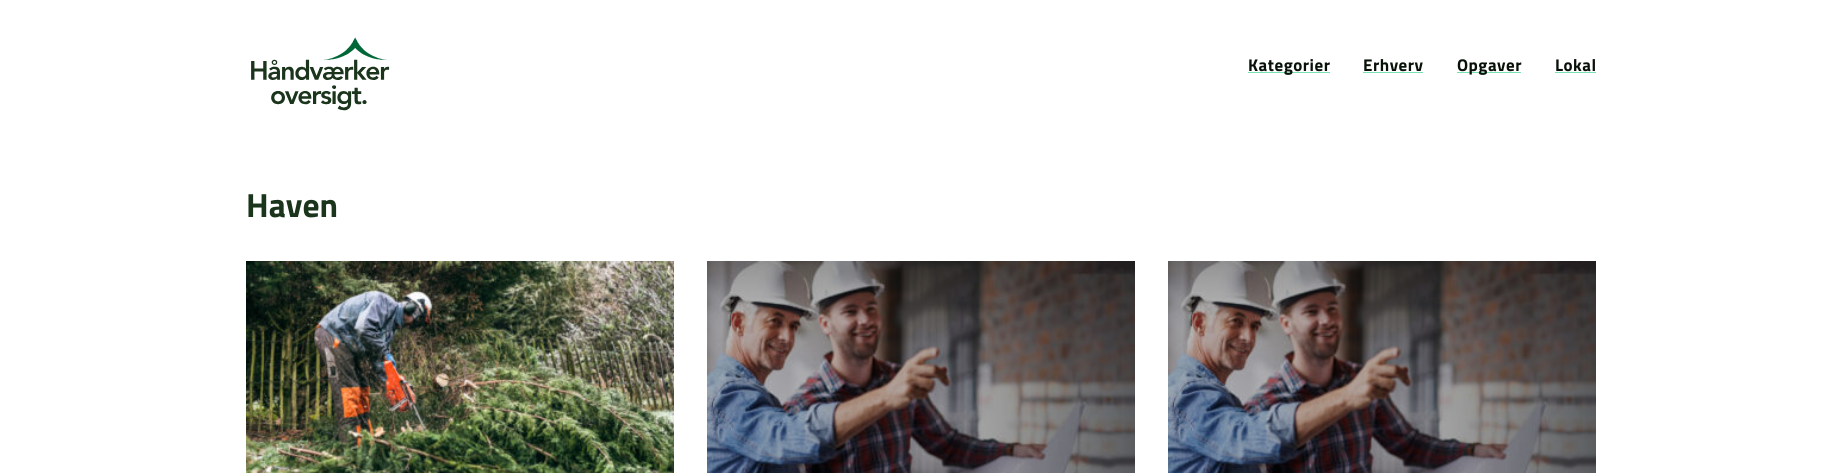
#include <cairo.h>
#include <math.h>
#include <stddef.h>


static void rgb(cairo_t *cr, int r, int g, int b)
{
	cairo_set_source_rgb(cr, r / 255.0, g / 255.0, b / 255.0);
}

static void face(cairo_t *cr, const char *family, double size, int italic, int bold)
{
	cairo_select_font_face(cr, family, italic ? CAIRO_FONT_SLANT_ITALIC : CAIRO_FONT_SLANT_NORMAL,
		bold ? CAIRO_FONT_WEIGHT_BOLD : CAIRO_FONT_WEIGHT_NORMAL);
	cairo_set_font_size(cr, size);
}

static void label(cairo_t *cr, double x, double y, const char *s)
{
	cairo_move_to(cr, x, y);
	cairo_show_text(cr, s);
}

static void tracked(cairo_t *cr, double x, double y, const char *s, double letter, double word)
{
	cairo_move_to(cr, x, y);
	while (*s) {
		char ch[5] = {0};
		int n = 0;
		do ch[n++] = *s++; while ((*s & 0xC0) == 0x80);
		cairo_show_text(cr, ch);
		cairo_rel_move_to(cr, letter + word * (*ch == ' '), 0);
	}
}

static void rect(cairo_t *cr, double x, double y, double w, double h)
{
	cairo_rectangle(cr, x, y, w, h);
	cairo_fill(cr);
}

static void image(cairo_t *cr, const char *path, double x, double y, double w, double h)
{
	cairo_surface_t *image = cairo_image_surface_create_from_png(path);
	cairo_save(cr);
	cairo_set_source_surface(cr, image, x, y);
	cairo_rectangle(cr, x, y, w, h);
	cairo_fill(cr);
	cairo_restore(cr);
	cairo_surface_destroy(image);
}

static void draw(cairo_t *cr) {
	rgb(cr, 255, 255, 255);
	cairo_paint(cr);
	image(cr, "image0.png", 251, 37, 139, 74);
	rgb(cr, 121, 224, 180);
	rect(cr, 1248, 72, 82, 1);
	face(cr, "Titillium Web", 17, 0, 1);
	rgb(cr, 9, 18, 9);
	tracked(cr, 1248, 71, "Kategorier", 0.5, 0);
	tracked(cr, 1363, 71, "Erhverv", 0.5, 0);
	rgb(cr, 121, 224, 180);
	rect(cr, 1363, 72, 60, 1);
	rect(cr, 1457, 72, 64, 1);
	rgb(cr, 9, 18, 9);
	tracked(cr, 1457, 71, "Opgaver", 0.5, 0);
	tracked(cr, 1555, 71, "Lokal", 0.5, 0);
	rgb(cr, 121, 224, 180);
	rect(cr, 1555, 72, 41, 1);
	face(cr, "Titillium Web", 33.5, 0, 1);
	rgb(cr, 26, 53, 27);
	label(cr, 246, 217, "Haven");
	image(cr, "image1.png", 246, 261, 428, 212);
	image(cr, "image2.png", 707, 261, 428, 212);
	image(cr, "image3.png", 1168, 261, 428, 212);
}

int main(void) {
	cairo_surface_t *surface = cairo_image_surface_create(CAIRO_FORMAT_RGB24, 1842, 473);
	cairo_t *cr = cairo_create(surface);
	cairo_font_options_t *options = cairo_font_options_create();
	cairo_font_options_set_hint_metrics(options, CAIRO_HINT_METRICS_OFF);
	cairo_font_options_set_hint_style(options, CAIRO_HINT_STYLE_NONE);
	cairo_set_font_options(cr, options);
	cairo_set_miter_limit(cr, 4);
	draw(cr);
	cairo_surface_write_to_png(surface, "render.png");
	cairo_font_options_destroy(options);
	cairo_destroy(cr);
	cairo_surface_destroy(surface);
	return 0;
}
